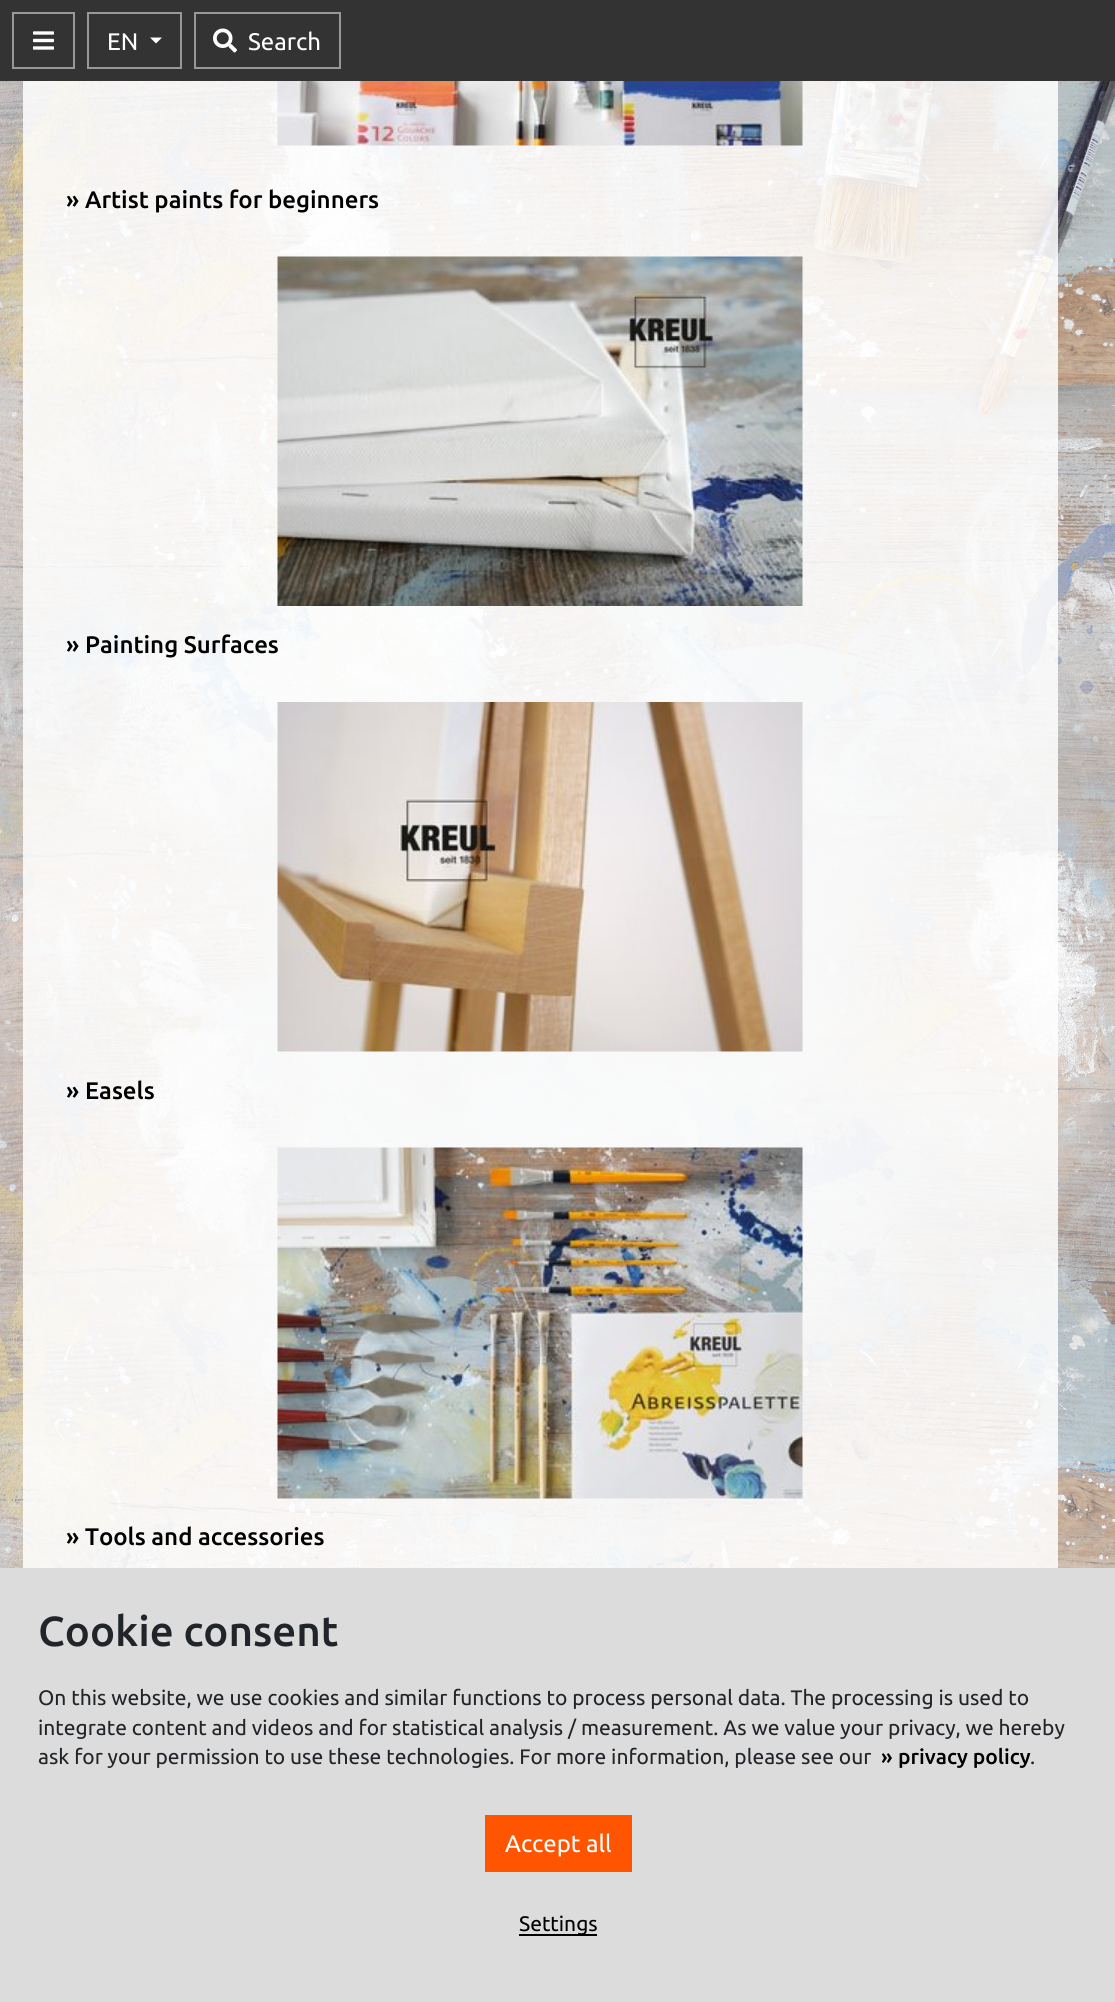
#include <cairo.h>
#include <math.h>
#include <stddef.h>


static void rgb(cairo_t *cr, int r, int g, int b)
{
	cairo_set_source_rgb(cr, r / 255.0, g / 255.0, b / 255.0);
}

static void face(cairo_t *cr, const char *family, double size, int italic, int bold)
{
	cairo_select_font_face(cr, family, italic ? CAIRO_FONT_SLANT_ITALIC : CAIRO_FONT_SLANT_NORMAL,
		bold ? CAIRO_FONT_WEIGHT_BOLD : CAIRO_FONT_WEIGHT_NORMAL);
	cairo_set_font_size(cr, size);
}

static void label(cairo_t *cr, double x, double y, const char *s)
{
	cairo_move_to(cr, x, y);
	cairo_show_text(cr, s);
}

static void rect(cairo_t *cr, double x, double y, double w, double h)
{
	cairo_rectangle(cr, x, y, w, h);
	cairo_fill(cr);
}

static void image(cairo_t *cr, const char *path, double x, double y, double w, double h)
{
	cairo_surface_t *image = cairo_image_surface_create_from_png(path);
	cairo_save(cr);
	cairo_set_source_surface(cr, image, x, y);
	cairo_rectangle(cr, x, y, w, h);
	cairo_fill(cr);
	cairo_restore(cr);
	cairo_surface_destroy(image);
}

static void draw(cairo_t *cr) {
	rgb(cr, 255, 255, 255);
	cairo_paint(cr);
	rgb(cr, 51, 51, 51);
	rect(cr, 0, 0, 1115, 81);
	cairo_rectangle(cr, 13, 13, 61, 55);
	rgb(cr, 151, 153, 150);
	cairo_stroke(cr);
	image(cr, "image0.png", 33, 31, 21, 19);
	cairo_rectangle(cr, 88, 13, 93, 55);
	cairo_stroke(cr);
	face(cr, "Ubuntu", 24, 0, 0);
	rgb(cr, 255, 255, 255);
	label(cr, 107, 50, "EN");
	cairo_new_path(cr);
	cairo_move_to(cr, 150, 37.5);
	cairo_line_to(cr, 162, 37.5);
	cairo_line_to(cr, 156, 43.5);
	cairo_close_path(cr);
	cairo_fill(cr);
	cairo_rectangle(cr, 195, 13, 145, 55);
	rgb(cr, 151, 153, 150);
	cairo_stroke(cr);
	image(cr, "image1.png", 213, 28, 24, 25);
	rgb(cr, 255, 255, 255);
	label(cr, 248, 50, "Search");
	image(cr, "image6.png", 0, 81, 1115, 1487);
	cairo_set_source_rgba(cr, 1, 1, 1, 0.85);
	rect(cr, 23, 81, 1035, 1487);
	image(cr, "image2.png", 277, 81, 526, 65);
	face(cr, "Ubuntu Medium", 24, 0, 0);
	rgb(cr, 0, 0, 0);
	label(cr, 66, 208, "»");
	label(cr, 85, 208, "Artist paints for beginners");
	image(cr, "image3.png", 277, 256, 526, 350);
	label(cr, 66, 653, "»");
	label(cr, 85, 653, "Painting Surfaces");
	image(cr, "image4.png", 277, 702, 526, 350);
	label(cr, 66, 1099, "»");
	label(cr, 85, 1099, "Easels");
	image(cr, "image5.png", 277, 1147, 526, 352);
	label(cr, 66, 1545, "»");
	label(cr, 85, 1545, "Tools and accessories");
	rgb(cr, 220, 220, 220);
	rect(cr, 0, 1568, 1115, 434);
	face(cr, "Ubuntu Medium", 42, 0, 0);
	rgb(cr, 33, 37, 41);
	label(cr, 38, 1646, "Cookie consent");
	face(cr, "Ubuntu", 21, 0, 0);
	label(cr, 38, 1705, "On this website, we use cookies and similar functions to process personal data. The processing is used to");
	label(cr, 38, 1735, "integrate content and videos and for statistical analysis / measurement. As we value your privacy, we hereby");
	label(cr, 38, 1764, "ask for your permission to use these technologies. For more information, please see our");
	face(cr, "Ubuntu Medium", 21, 0, 0);
	rgb(cr, 0, 0, 0);
	label(cr, 881, 1764, "»");
	label(cr, 898, 1764, "privacy policy");
	face(cr, "Ubuntu", 21, 0, 0);
	rgb(cr, 33, 37, 41);
	label(cr, 1030, 1764, ".");
	rgb(cr, 255, 85, 0);
	rect(cr, 485, 1815, 147, 57);
	face(cr, "Ubuntu", 24, 0, 0);
	rgb(cr, 255, 255, 255);
	label(cr, 505, 1852, "Accept all");
	rgb(cr, 0, 0, 0);
	rect(cr, 519, 1934, 78, 2);
	face(cr, "Ubuntu", 21, 0, 0);
	label(cr, 519, 1931, "Settings");
}

int main(void) {
	cairo_surface_t *surface = cairo_image_surface_create(CAIRO_FORMAT_RGB24, 1115, 2002);
	cairo_t *cr = cairo_create(surface);
	cairo_font_options_t *options = cairo_font_options_create();
	cairo_font_options_set_hint_metrics(options, CAIRO_HINT_METRICS_OFF);
	cairo_font_options_set_hint_style(options, CAIRO_HINT_STYLE_NONE);
	cairo_set_font_options(cr, options);
	cairo_set_miter_limit(cr, 4);
	draw(cr);
	cairo_surface_write_to_png(surface, "render.png");
	cairo_font_options_destroy(options);
	cairo_destroy(cr);
	cairo_surface_destroy(surface);
	return 0;
}
